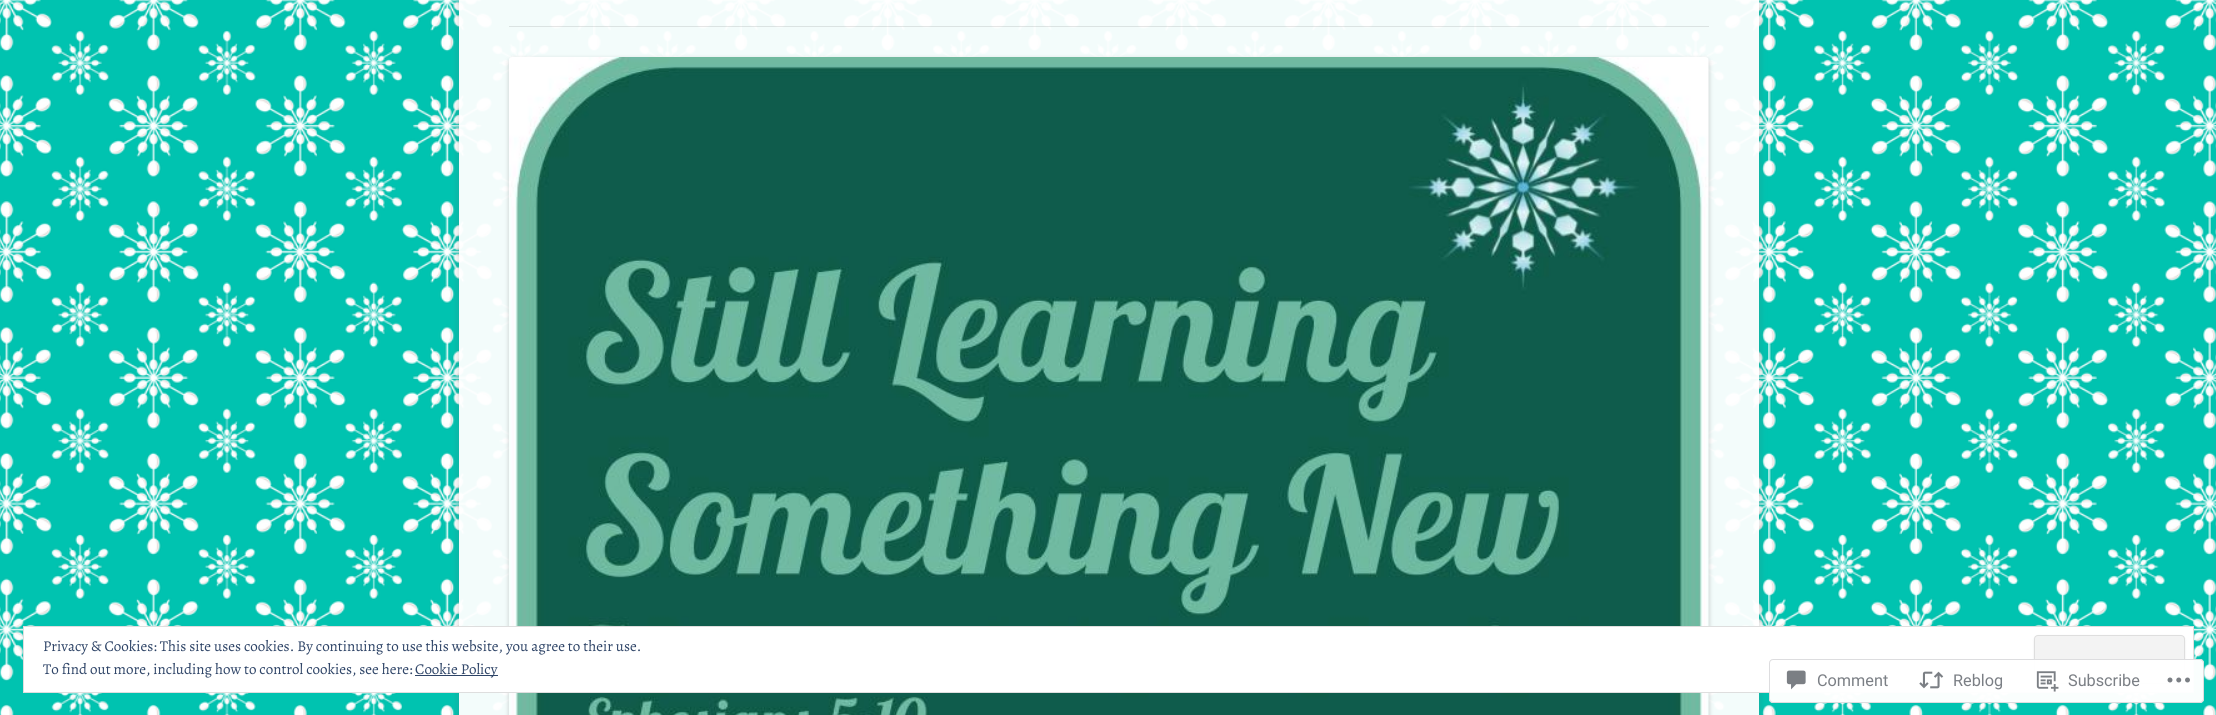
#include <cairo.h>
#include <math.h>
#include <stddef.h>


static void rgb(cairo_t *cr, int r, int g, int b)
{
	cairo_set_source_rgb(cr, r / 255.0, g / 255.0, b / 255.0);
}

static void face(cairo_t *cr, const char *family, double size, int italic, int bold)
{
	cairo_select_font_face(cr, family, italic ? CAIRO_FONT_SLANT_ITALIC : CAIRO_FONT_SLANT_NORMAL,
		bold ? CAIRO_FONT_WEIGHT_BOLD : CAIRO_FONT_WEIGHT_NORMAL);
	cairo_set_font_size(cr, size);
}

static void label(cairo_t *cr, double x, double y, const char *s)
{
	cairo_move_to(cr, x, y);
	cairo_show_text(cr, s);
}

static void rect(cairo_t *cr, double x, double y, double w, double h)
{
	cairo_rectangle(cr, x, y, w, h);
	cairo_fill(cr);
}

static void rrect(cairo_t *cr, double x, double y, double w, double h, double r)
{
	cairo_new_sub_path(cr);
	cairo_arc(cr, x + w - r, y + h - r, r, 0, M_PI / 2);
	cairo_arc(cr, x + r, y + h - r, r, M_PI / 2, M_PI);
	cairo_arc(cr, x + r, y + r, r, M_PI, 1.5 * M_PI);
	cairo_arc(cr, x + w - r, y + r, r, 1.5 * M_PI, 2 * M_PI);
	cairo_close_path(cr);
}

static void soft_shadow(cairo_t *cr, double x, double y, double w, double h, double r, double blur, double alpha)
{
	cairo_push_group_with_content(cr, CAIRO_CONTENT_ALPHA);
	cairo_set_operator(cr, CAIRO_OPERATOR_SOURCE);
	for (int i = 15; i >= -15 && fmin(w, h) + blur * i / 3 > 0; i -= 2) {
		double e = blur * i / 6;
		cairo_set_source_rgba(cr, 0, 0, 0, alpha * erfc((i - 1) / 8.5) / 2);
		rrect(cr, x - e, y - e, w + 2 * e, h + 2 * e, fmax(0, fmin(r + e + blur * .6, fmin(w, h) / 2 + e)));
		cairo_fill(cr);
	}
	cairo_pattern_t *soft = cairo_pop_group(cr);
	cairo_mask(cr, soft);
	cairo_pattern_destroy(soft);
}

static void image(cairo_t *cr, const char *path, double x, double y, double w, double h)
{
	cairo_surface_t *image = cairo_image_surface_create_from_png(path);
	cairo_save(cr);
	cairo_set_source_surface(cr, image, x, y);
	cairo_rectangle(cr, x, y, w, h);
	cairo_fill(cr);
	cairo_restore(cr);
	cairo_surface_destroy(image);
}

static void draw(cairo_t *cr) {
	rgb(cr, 255, 255, 255);
	cairo_paint(cr);
	image(cr, "image0.png", 0, 0, 2216, 715);
	cairo_save(cr);
	cairo_set_fill_rule(cr, CAIRO_FILL_RULE_EVEN_ODD);
	cairo_new_path(cr);
	cairo_move_to(cr, 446, 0);
	cairo_line_to(cr, 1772, 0);
	cairo_line_to(cr, 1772, 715);
	cairo_line_to(cr, 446, 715);
	cairo_close_path(cr);
	cairo_move_to(cr, 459, -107);
	cairo_line_to(cr, 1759, -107);
	cairo_line_to(cr, 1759, 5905);
	cairo_line_to(cr, 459, 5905);
	cairo_close_path(cr);
	cairo_clip(cr);
	rgb(cr, 100, 100, 100);
	soft_shadow(cr, 459, -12, 1300, 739, 0, 4, 0.3);
	cairo_restore(cr);
	cairo_set_source_rgba(cr, 1, 1, 1, 0.95);
	rect(cr, 459, 0, 1300, 715);
	rgb(cr, 0, 0, 0);
	soft_shadow(cr, 509, 59, 1200, 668, 4, 2.5, 0.2);
	image(cr, "image1.png", 509, 57, 1200, 658);
	rgb(cr, 255, 255, 255);
	cairo_rectangle(cr, 23.5, 626.5, 2170, 66);
	cairo_fill_preserve(cr);
	rgb(cr, 222, 222, 222);
	cairo_set_line_width(cr, 1);
	cairo_stroke(cr);
	face(cr, "Alegreya", 15, 0, 0);
	rgb(cr, 46, 68, 103);
	label(cr, 43, 651, "Privacy & Cookies: This site uses cookies. By continuing to use this website, you agree to their use.");
	rgb(cr, 64, 64, 64);
	soft_shadow(cr, 2034, 636, 151, 49, 4, 1, 0.1);
	rgb(cr, 243, 243, 243);
	rrect(cr, 2034.5, 635.5, 150, 48, 3.5);
	cairo_fill_preserve(cr);
	rgb(cr, 222, 222, 222);
	cairo_stroke(cr);
	rgb(cr, 46, 68, 103);
	label(cr, 43, 674, "To find out more, including how to control cookies, see here:");
	rect(cr, 415, 675, 83, 1);
	label(cr, 415, 674, "Cookie Policy");
	cairo_set_source_rgba(cr, 0, 0, 0, 0.1);
	rect(cr, 509, 26, 1200, 1);
	cairo_set_source_rgba(cr, 1, 1, 1, 0.98);
	rrect(cr, 1769, 659, 435, 44, 4);
	cairo_fill(cr);
	rrect(cr, 1769.5, 659.5, 434, 43, 3.5);
	cairo_set_source_rgba(cr, 0.863, 0.863, 0.871, 0.98);
	cairo_stroke(cr);
	image(cr, "image2.png", 1786, 670, 20, 20);
	face(cr, "Roboto", 16.25, 0, 0);
	rgb(cr, 123, 127, 133);
	label(cr, 1817, 686, "Comment");
	image(cr, "image3.png", 1919, 671, 25, 18);
	label(cr, 1953, 686, "Reblog");
	image(cr, "image4.png", 2036, 671, 23, 21);
	label(cr, 2068, 686, "Subscribe");
	image(cr, "image5.png", 2167, 677, 23, 6);
}

int main(void) {
	cairo_surface_t *surface = cairo_image_surface_create(CAIRO_FORMAT_RGB24, 2216, 715);
	cairo_t *cr = cairo_create(surface);
	cairo_font_options_t *options = cairo_font_options_create();
	cairo_font_options_set_hint_metrics(options, CAIRO_HINT_METRICS_OFF);
	cairo_font_options_set_hint_style(options, CAIRO_HINT_STYLE_NONE);
	cairo_set_font_options(cr, options);
	cairo_set_miter_limit(cr, 4);
	draw(cr);
	cairo_surface_write_to_png(surface, "render.png");
	cairo_font_options_destroy(options);
	cairo_destroy(cr);
	cairo_surface_destroy(surface);
	return 0;
}
